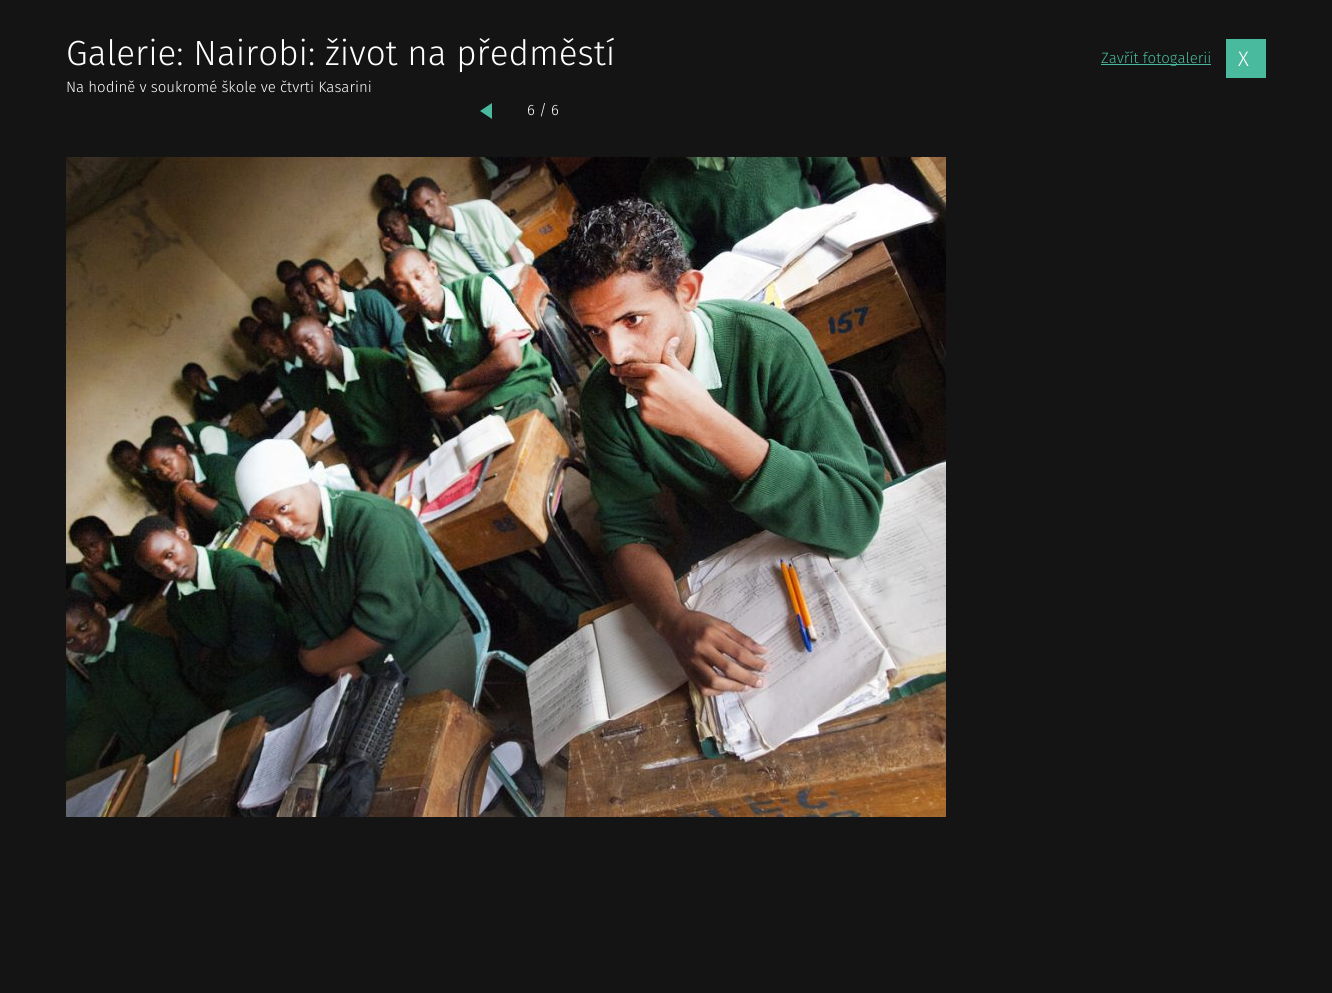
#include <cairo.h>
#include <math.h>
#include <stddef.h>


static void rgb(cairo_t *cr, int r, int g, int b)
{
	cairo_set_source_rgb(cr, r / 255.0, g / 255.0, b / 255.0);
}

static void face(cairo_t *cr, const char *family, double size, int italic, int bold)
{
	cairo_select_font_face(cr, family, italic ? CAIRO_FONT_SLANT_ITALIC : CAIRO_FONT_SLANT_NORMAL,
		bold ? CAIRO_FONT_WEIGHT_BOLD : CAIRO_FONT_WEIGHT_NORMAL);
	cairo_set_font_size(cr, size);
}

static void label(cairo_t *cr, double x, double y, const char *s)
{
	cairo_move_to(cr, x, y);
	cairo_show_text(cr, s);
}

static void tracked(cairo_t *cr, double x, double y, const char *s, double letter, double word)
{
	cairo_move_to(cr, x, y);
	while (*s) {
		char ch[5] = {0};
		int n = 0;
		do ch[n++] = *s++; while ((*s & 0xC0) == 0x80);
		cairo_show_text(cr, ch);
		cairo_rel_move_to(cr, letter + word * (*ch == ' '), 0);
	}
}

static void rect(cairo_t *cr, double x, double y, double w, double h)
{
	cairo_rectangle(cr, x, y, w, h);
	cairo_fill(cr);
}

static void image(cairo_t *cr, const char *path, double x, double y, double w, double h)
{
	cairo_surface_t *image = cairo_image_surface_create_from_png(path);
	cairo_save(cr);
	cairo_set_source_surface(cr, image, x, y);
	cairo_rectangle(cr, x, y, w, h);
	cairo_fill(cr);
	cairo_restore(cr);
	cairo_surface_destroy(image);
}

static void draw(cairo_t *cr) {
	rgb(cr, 20, 20, 20);
	cairo_paint(cr);
	face(cr, "Fira Sans Light", 35, 0, 0);
	rgb(cr, 255, 255, 255);
	label(cr, 66, 65, "Galerie: Nairobi: život na předměstí");
	face(cr, "Fira Sans Light", 15, 0, 0);
	label(cr, 66, 92, "Na hodině v soukromé škole ve čtvrti Kasarini");
	rgb(cr, 73, 186, 157);
	cairo_new_path(cr);
	cairo_move_to(cr, 492, 103);
	cairo_line_to(cr, 492, 119);
	cairo_line_to(cr, 480, 111);
	cairo_close_path(cr);
	cairo_fill(cr);
	rgb(cr, 255, 255, 255);
	label(cr, 527, 115, "6 / 6");
	rgb(cr, 73, 186, 157);
	rect(cr, 1101, 64, 110, 1);
	label(cr, 1101, 63, "Zavřít fotogalerii");
	rect(cr, 1226, 39, 40, 39);
	face(cr, "Fira Sans Light", 21, 0, 0);
	rgb(cr, 255, 255, 255);
	tracked(cr, 1238, 66, "X", 5, 0);
	image(cr, "image0.png", 66, 157, 880, 660);
}

int main(void) {
	cairo_surface_t *surface = cairo_image_surface_create(CAIRO_FORMAT_RGB24, 1332, 993);
	cairo_t *cr = cairo_create(surface);
	cairo_font_options_t *options = cairo_font_options_create();
	cairo_font_options_set_hint_metrics(options, CAIRO_HINT_METRICS_OFF);
	cairo_font_options_set_hint_style(options, CAIRO_HINT_STYLE_NONE);
	cairo_set_font_options(cr, options);
	cairo_set_miter_limit(cr, 4);
	draw(cr);
	cairo_surface_write_to_png(surface, "render.png");
	cairo_font_options_destroy(options);
	cairo_destroy(cr);
	cairo_surface_destroy(surface);
	return 0;
}
